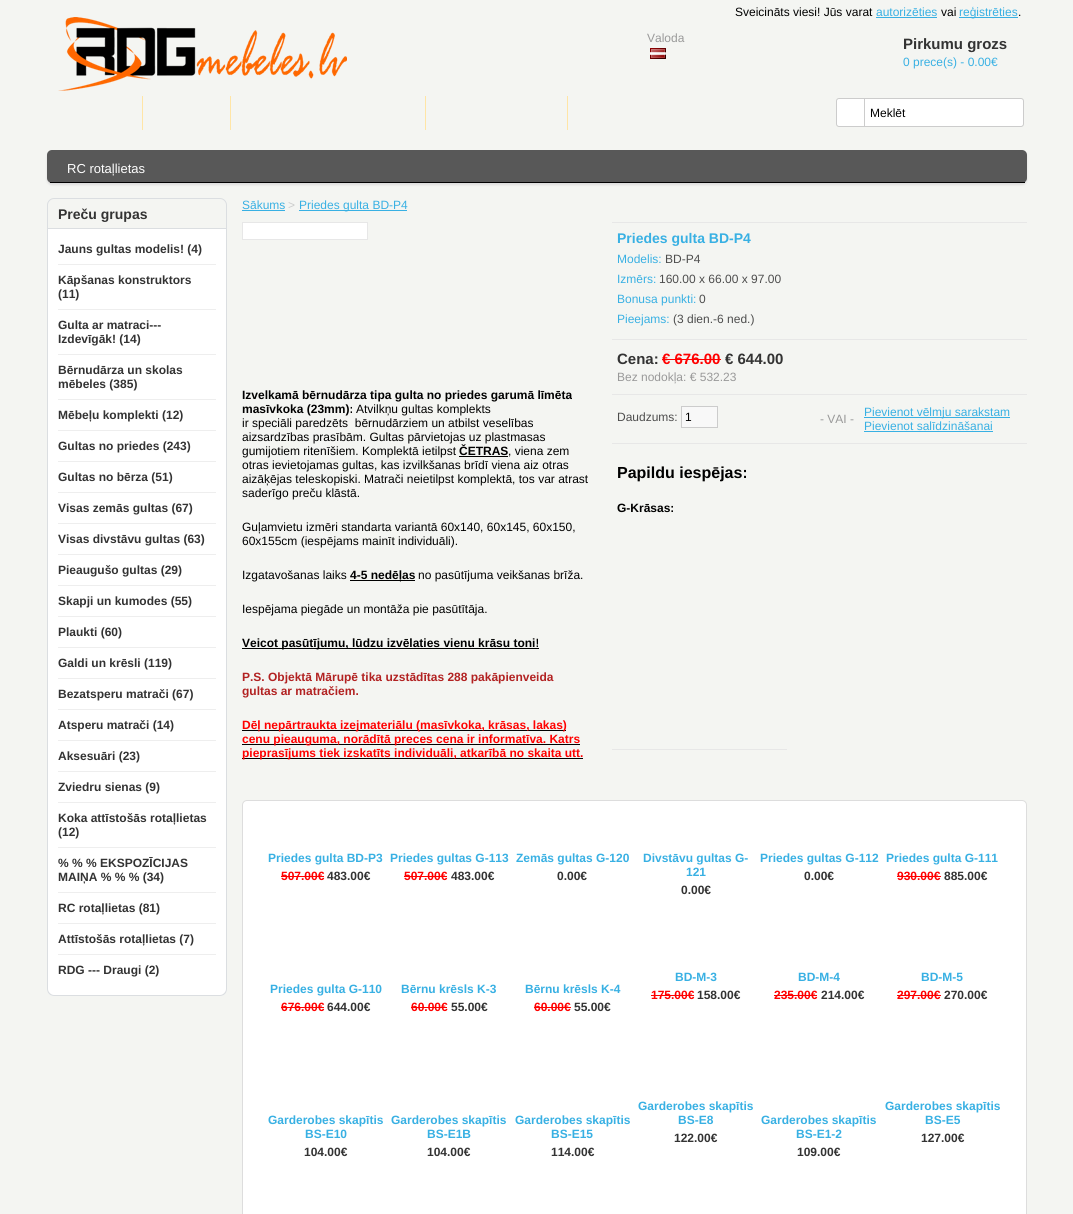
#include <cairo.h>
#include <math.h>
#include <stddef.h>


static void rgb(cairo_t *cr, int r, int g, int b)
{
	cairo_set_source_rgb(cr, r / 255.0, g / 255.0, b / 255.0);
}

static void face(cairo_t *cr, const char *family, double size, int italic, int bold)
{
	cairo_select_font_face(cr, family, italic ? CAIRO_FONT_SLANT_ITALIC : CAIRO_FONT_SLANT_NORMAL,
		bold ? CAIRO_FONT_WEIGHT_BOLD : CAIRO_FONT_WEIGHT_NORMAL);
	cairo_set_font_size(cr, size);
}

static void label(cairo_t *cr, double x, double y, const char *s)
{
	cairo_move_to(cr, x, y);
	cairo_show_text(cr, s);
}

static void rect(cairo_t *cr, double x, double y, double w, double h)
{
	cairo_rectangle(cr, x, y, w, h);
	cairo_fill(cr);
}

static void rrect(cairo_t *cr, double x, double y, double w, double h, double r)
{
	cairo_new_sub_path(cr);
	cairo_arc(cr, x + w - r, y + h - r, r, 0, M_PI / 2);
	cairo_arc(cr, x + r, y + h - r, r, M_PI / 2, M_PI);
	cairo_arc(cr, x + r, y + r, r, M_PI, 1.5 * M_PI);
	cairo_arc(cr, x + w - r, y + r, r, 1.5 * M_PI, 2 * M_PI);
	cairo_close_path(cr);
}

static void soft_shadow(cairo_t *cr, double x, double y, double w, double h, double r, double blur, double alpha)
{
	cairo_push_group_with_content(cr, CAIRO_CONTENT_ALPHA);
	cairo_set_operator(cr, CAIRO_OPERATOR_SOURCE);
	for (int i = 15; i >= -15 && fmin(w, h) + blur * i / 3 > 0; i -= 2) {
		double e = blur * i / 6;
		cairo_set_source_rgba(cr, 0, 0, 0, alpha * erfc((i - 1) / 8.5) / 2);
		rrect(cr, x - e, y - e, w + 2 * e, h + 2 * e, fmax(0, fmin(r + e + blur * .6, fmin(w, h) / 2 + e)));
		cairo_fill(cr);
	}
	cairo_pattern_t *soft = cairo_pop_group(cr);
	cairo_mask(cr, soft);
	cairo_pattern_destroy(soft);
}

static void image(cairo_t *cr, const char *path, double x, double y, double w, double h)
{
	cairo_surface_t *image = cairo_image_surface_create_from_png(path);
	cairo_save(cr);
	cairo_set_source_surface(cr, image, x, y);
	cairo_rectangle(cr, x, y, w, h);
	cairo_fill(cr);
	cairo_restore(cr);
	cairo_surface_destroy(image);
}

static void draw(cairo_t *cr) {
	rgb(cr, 244, 245, 242);
	cairo_paint(cr);
	face(cr, "Liberation Sans", 12, 0, 0);
	rgb(cr, 0, 0, 0);
	label(cr, 735, 16, "Sveicināts viesi! Jūs varat");
	rgb(cr, 56, 176, 227);
	label(cr, 876, 16, "autorizēties");
	rect(cr, 876, 17, 61, 1);
	rgb(cr, 0, 0, 0);
	label(cr, 941, 16, "vai");
	rgb(cr, 56, 176, 227);
	rect(cr, 959, 17, 59, 1);
	label(cr, 959, 16, "reģistrēties");
	rgb(cr, 0, 0, 0);
	label(cr, 1018, 16, ".");
	image(cr, "image0.png", 58, 17, 289, 74);
	rgb(cr, 153, 153, 153);
	label(cr, 647, 42, "Valoda");
	image(cr, "image1.png", 650, 48, 16, 11);
	face(cr, "Liberation Sans", 15, 0, 1);
	rgb(cr, 51, 51, 51);
	label(cr, 903, 49, "Pirkumu grozs");
	face(cr, "Liberation Sans", 12, 0, 0);
	rgb(cr, 56, 176, 227);
	label(cr, 903, 66, "0 prece(s) - 0.00€");
	rgb(cr, 255, 229, 166);
	rect(cr, 142, 96, 1, 34);
	rect(cr, 230, 96, 1, 34);
	rect(cr, 425, 96, 1, 34);
	rect(cr, 567, 96, 1, 34);
	rgb(cr, 255, 255, 255);
	rrect(cr, 836.5, 98.5, 187, 28, 2.5);
	cairo_fill_preserve(cr);
	rgb(cr, 204, 204, 204);
	cairo_set_line_width(cr, 1);
	cairo_stroke(cr);
	rect(cr, 864, 98, 1, 28);
	rgb(cr, 0, 0, 0);
	label(cr, 870, 117, "Meklēt");
	rgb(cr, 221, 221, 221);
	soft_shadow(cr, 47, 152, 980, 33, 5, 1, 1);
	rgb(cr, 88, 88, 88);
	rrect(cr, 47, 150, 980, 33, 5);
	cairo_fill(cr);
	rgb(cr, 0, 0, 0);
	rect(cr, 50, 182, 975, 1);
	face(cr, "Liberation Sans", 13, 0, 0);
	rgb(cr, 255, 255, 255);
	label(cr, 67, 173, "RC rotaļlietas");
	cairo_new_path(cr);
	cairo_move_to(cr, 54, 198.5);
	cairo_line_to(cr, 220, 198.5);
	cairo_curve_to(cr, 223.5, 198.5, 226.5, 201.5, 226.5, 205);
	cairo_line_to(cr, 226.5, 228.5);
	cairo_line_to(cr, 47.5, 228.5);
	cairo_line_to(cr, 47.5, 205);
	cairo_curve_to(cr, 47.5, 201.5, 50.5, 198.5, 54, 198.5);
	cairo_close_path(cr);
	rgb(cr, 219, 222, 225);
	cairo_stroke(cr);
	face(cr, "Liberation Sans", 14, 0, 1);
	rgb(cr, 51, 51, 51);
	label(cr, 58, 219, "Preču grupas");
	rgb(cr, 255, 255, 255);
	cairo_new_path(cr);
	cairo_move_to(cr, 47, 229);
	cairo_line_to(cr, 227, 229);
	cairo_line_to(cr, 227, 989);
	cairo_curve_to(cr, 227, 993, 224, 996, 220, 996);
	cairo_line_to(cr, 54, 996);
	cairo_curve_to(cr, 50, 996, 47, 993, 47, 989);
	cairo_close_path(cr);
	cairo_fill(cr);
	rgb(cr, 219, 222, 225);
	cairo_set_fill_rule(cr, CAIRO_FILL_RULE_EVEN_ODD);
	cairo_new_path(cr);
	cairo_move_to(cr, 47, 229);
	cairo_line_to(cr, 227, 229);
	cairo_line_to(cr, 227, 989);
	cairo_curve_to(cr, 227, 993, 224, 996, 220, 996);
	cairo_line_to(cr, 54, 996);
	cairo_curve_to(cr, 50, 996, 47, 993, 47, 989);
	cairo_close_path(cr);
	cairo_move_to(cr, 48, 229);
	cairo_line_to(cr, 226, 229);
	cairo_line_to(cr, 226, 989);
	cairo_curve_to(cr, 226, 992, 223, 995, 220, 995);
	cairo_line_to(cr, 54, 995);
	cairo_curve_to(cr, 51, 995, 48, 992, 48, 989);
	cairo_close_path(cr);
	cairo_fill(cr);
	face(cr, "Liberation Sans", 12, 0, 1);
	rgb(cr, 51, 51, 51);
	label(cr, 58, 253, "Jauns gultas modelis! (4)");
	rgb(cr, 238, 238, 238);
	rect(cr, 58, 264, 158, 1);
	rgb(cr, 51, 51, 51);
	label(cr, 58, 284, "Kāpšanas konstruktors");
	label(cr, 58, 298, "(11)");
	rgb(cr, 238, 238, 238);
	rect(cr, 58, 309, 158, 1);
	rgb(cr, 51, 51, 51);
	label(cr, 58, 329, "Gulta ar matraci---");
	label(cr, 58, 343, "Izdevīgāk! (14)");
	rgb(cr, 238, 238, 238);
	rect(cr, 58, 354, 158, 1);
	rgb(cr, 51, 51, 51);
	label(cr, 58, 374, "Bērnudārza un skolas");
	label(cr, 58, 388, "mēbeles (385)");
	rgb(cr, 238, 238, 238);
	rect(cr, 58, 399, 158, 1);
	rgb(cr, 51, 51, 51);
	label(cr, 58, 419, "Mēbeļu komplekti (12)");
	rgb(cr, 238, 238, 238);
	rect(cr, 58, 430, 158, 1);
	rgb(cr, 51, 51, 51);
	label(cr, 58, 450, "Gultas no priedes (243)");
	rgb(cr, 238, 238, 238);
	rect(cr, 58, 461, 158, 1);
	rgb(cr, 51, 51, 51);
	label(cr, 58, 481, "Gultas no bērza (51)");
	rgb(cr, 238, 238, 238);
	rect(cr, 58, 492, 158, 1);
	rgb(cr, 51, 51, 51);
	label(cr, 58, 512, "Visas zemās gultas (67)");
	rgb(cr, 238, 238, 238);
	rect(cr, 58, 523, 158, 1);
	rgb(cr, 51, 51, 51);
	label(cr, 58, 543, "Visas divstāvu gultas (63)");
	rgb(cr, 238, 238, 238);
	rect(cr, 58, 554, 158, 1);
	rgb(cr, 51, 51, 51);
	label(cr, 58, 574, "Pieaugušo gultas (29)");
	rgb(cr, 238, 238, 238);
	rect(cr, 58, 585, 158, 1);
	rgb(cr, 51, 51, 51);
	label(cr, 58, 605, "Skapji un kumodes (55)");
	rgb(cr, 238, 238, 238);
	rect(cr, 58, 616, 158, 1);
	rgb(cr, 51, 51, 51);
	label(cr, 58, 636, "Plaukti (60)");
	rgb(cr, 238, 238, 238);
	rect(cr, 58, 647, 158, 1);
	rgb(cr, 51, 51, 51);
	label(cr, 58, 667, "Galdi un krēsli (119)");
	rgb(cr, 238, 238, 238);
	rect(cr, 58, 678, 158, 1);
	rgb(cr, 51, 51, 51);
	label(cr, 58, 698, "Bezatsperu matrači (67)");
	rgb(cr, 238, 238, 238);
	rect(cr, 58, 709, 158, 1);
	rgb(cr, 51, 51, 51);
	label(cr, 58, 729, "Atsperu matrači (14)");
	rgb(cr, 238, 238, 238);
	rect(cr, 58, 740, 158, 1);
	rgb(cr, 51, 51, 51);
	label(cr, 58, 760, "Aksesuāri (23)");
	rgb(cr, 238, 238, 238);
	rect(cr, 58, 771, 158, 1);
	rgb(cr, 51, 51, 51);
	label(cr, 58, 791, "Zviedru sienas (9)");
	rgb(cr, 238, 238, 238);
	rect(cr, 58, 802, 158, 1);
	rgb(cr, 51, 51, 51);
	label(cr, 58, 822, "Koka attīstošās rotaļlietas");
	label(cr, 58, 836, "(12)");
	rgb(cr, 238, 238, 238);
	rect(cr, 58, 847, 158, 1);
	rgb(cr, 51, 51, 51);
	label(cr, 58, 867, "% % % EKSPOZĪCIJAS");
	label(cr, 58, 881, "MAIŅA % % % (34)");
	rgb(cr, 238, 238, 238);
	rect(cr, 58, 892, 158, 1);
	rgb(cr, 51, 51, 51);
	label(cr, 58, 912, "RC rotaļlietas (81)");
	rgb(cr, 238, 238, 238);
	rect(cr, 58, 923, 158, 1);
	rgb(cr, 51, 51, 51);
	label(cr, 58, 943, "Attīstošās rotaļlietas (7)");
	rgb(cr, 238, 238, 238);
	rect(cr, 58, 954, 158, 1);
	rgb(cr, 51, 51, 51);
	label(cr, 58, 974, "RDG --- Draugi (2)");
	face(cr, "Liberation Sans", 12, 0, 0);
	rgb(cr, 56, 176, 227);
	label(cr, 242, 209, "Sākums");
	rect(cr, 242, 210, 43, 1);
	rgb(cr, 204, 204, 204);
	label(cr, 288, 209, ">");
	rgb(cr, 56, 176, 227);
	rect(cr, 299, 210, 108, 1);
	label(cr, 299, 209, "Priedes gulta BD-P4");
	rgb(cr, 255, 255, 255);
	cairo_rectangle(cr, 242.5, 222.5, 125, 17);
	cairo_fill_preserve(cr);
	rgb(cr, 231, 231, 231);
	cairo_stroke(cr);
	face(cr, "Liberation Sans", 12, 0, 1);
	rgb(cr, 0, 0, 0);
	label(cr, 242, 399, "Izvelkamā bērnudārza tipa gulta no priedes garumā līmēta");
	label(cr, 242, 413, "masīvkoka (23mm):");
	face(cr, "Liberation Sans", 12, 0, 0);
	label(cr, 356, 413, "Atvilkņu gultas komplekts");
	label(cr, 242, 427, "ir speciāli paredzēts  bērnudārziem un atbilst veselības");
	label(cr, 242, 441, "aizsardzības prasībām. Gultas pārvietojas uz plastmasas");
	label(cr, 242, 455, "gumijotiem ritenīšiem. Komplektā ietilpst");
	face(cr, "Liberation Sans", 12, 0, 1);
	label(cr, 459, 455, "ČETRAS");
	rect(cr, 459, 456, 49, 1);
	face(cr, "Liberation Sans", 12, 0, 0);
	label(cr, 508, 455, ", viena zem");
	label(cr, 242, 469, "otras ievietojamas gultas, kas izvilkšanas brīdī viena aiz otras");
	label(cr, 242, 483, "aizāķējas teleskopiski. Matrači neietilpst komplektā, tos var atrast");
	label(cr, 242, 497, "saderīgo preču klāstā.");
	label(cr, 242, 531, "Guļamvietu izmēri standarta variantā 60x140, 60x145, 60x150,");
	label(cr, 242, 545, "60x155cm (iespējams mainīt individuāli).");
	label(cr, 242, 579, "Izgatavošanas laiks");
	rect(cr, 350, 580, 65, 1);
	face(cr, "Liberation Sans", 12, 0, 1);
	label(cr, 350, 579, "4-5 nedēļas");
	face(cr, "Liberation Sans", 12, 0, 0);
	label(cr, 418, 579, "no pasūtījuma veikšanas brīža.");
	label(cr, 242, 613, "Iespējama piegāde un montāža pie pasūtītāja.");
	rect(cr, 242, 648, 297, 1);
	face(cr, "Liberation Sans", 12, 0, 1);
	label(cr, 242, 647, "Veicot pasūtījumu, lūdzu izvēlaties vienu krāsu toni!");
	rgb(cr, 178, 34, 34);
	label(cr, 242, 681, "P.S. Objektā Mārupē tika uzstādītas 288 pakāpienveida");
	label(cr, 242, 695, "gultas ar matračiem.");
	rgb(cr, 0, 0, 0);
	rect(cr, 242, 730, 324, 1);
	rgb(cr, 255, 0, 0);
	label(cr, 242, 729, "Dēļ nepārtraukta izejmateriālu (masīvkoka, krāsas, lakas)");
	rgb(cr, 0, 0, 0);
	rect(cr, 242, 744, 338, 1);
	rgb(cr, 255, 0, 0);
	label(cr, 242, 743, "cenu pieauguma, norādītā preces cena ir informatīva. Katrs");
	rgb(cr, 0, 0, 0);
	rect(cr, 242, 758, 341, 1);
	rgb(cr, 255, 0, 0);
	label(cr, 242, 757, "pieprasījums tiek izskatīts individuāli, atkarībā no skaita utt.");
	rgb(cr, 231, 231, 231);
	rect(cr, 612, 222, 415, 1);
	rect(cr, 612, 339, 415, 1);
	face(cr, "Liberation Sans", 14, 0, 1);
	rgb(cr, 56, 176, 227);
	label(cr, 617, 243, "Priedes gulta BD-P4");
	face(cr, "Liberation Sans", 12, 0, 0);
	label(cr, 617, 263, "Modelis:");
	rgb(cr, 77, 77, 77);
	label(cr, 665, 263, "BD-P4");
	rgb(cr, 56, 176, 227);
	label(cr, 617, 283, "Izmērs:");
	rgb(cr, 77, 77, 77);
	label(cr, 659, 283, "160.00 x 66.00 x 97.00");
	rgb(cr, 56, 176, 227);
	label(cr, 617, 303, "Bonusa punkti:");
	rgb(cr, 77, 77, 77);
	label(cr, 699, 303, "0");
	rgb(cr, 56, 176, 227);
	label(cr, 617, 323, "Pieejams:");
	rgb(cr, 77, 77, 77);
	label(cr, 673, 323, "(3 dien.-6 ned.)");
	rgb(cr, 231, 231, 231);
	rect(cr, 612, 394, 415, 1);
	face(cr, "Liberation Sans", 15, 0, 1);
	rgb(cr, 51, 51, 51);
	label(cr, 617, 364, "Cena:");
	rgb(cr, 255, 0, 0);
	label(cr, 662, 364, "€ 676.00");
	rect(cr, 662, 359, 59, 1);
	rgb(cr, 51, 51, 51);
	label(cr, 725, 364, "€ 644.00");
	face(cr, "Liberation Sans", 12, 0, 0);
	rgb(cr, 153, 153, 153);
	label(cr, 617, 381, "Bez nodokļa: € 532.23");
	rgb(cr, 231, 231, 231);
	rect(cr, 612, 443, 415, 1);
	rgb(cr, 77, 77, 77);
	label(cr, 617, 421, "Daudzums:");
	rgb(cr, 248, 248, 248);
	cairo_rectangle(cr, 681.5, 406.5, 36, 21);
	cairo_fill_preserve(cr);
	rgb(cr, 204, 204, 204);
	cairo_stroke(cr);
	rgb(cr, 0, 0, 0);
	label(cr, 685, 421, "1");
	rgb(cr, 153, 153, 153);
	label(cr, 820, 423, "- VAI -");
	rgb(cr, 56, 176, 227);
	rect(cr, 864, 417, 146, 1);
	label(cr, 864, 416, "Pievienot vēlmju sarakstam");
	label(cr, 864, 430, "Pievienot salīdzināšanai");
	rect(cr, 864, 431, 129, 1);
	rgb(cr, 231, 231, 231);
	rect(cr, 612, 749, 175, 1);
	face(cr, "Liberation Sans", 16, 0, 1);
	rgb(cr, 0, 0, 0);
	label(cr, 617, 478, "Papildu iespējas:");
	face(cr, "Liberation Sans", 12, 0, 1);
	label(cr, 617, 512, "G-Krāsas:");
	rgb(cr, 255, 255, 255);
	rrect(cr, 242.5, 800.5, 784, 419, 4.5);
	cairo_fill_preserve(cr);
	rgb(cr, 221, 221, 221);
	cairo_stroke(cr);
	rgb(cr, 56, 176, 227);
	label(cr, 268, 862, "Priedes gulta BD-P3");
	rgb(cr, 255, 0, 0);
	label(cr, 281, 880, "507.00€");
	rect(cr, 281, 876, 43, 1);
	rgb(cr, 51, 51, 51);
	label(cr, 327, 880, "483.00€");
	rgb(cr, 56, 176, 227);
	label(cr, 390, 862, "Priedes gultas G-113");
	rgb(cr, 255, 0, 0);
	label(cr, 404, 880, "507.00€");
	rect(cr, 404, 876, 43, 1);
	rgb(cr, 51, 51, 51);
	label(cr, 451, 880, "483.00€");
	rgb(cr, 56, 176, 227);
	label(cr, 516, 862, "Zemās gultas G-120");
	rgb(cr, 51, 51, 51);
	label(cr, 557, 880, "0.00€");
	rgb(cr, 56, 176, 227);
	label(cr, 643, 862, "Divstāvu gultas G-");
	label(cr, 686, 876, "121");
	rgb(cr, 51, 51, 51);
	label(cr, 681, 894, "0.00€");
	rgb(cr, 56, 176, 227);
	label(cr, 760, 862, "Priedes gultas G-112");
	rgb(cr, 51, 51, 51);
	label(cr, 804, 880, "0.00€");
	rgb(cr, 56, 176, 227);
	label(cr, 886, 862, "Priedes gulta G-111");
	rgb(cr, 255, 0, 0);
	label(cr, 897, 880, "930.00€");
	rect(cr, 897, 876, 44, 1);
	rgb(cr, 51, 51, 51);
	label(cr, 944, 880, "885.00€");
	rgb(cr, 56, 176, 227);
	label(cr, 270, 993, "Priedes gulta G-110");
	rgb(cr, 255, 0, 0);
	label(cr, 281, 1011, "676.00€");
	rect(cr, 281, 1007, 43, 1);
	rgb(cr, 51, 51, 51);
	label(cr, 327, 1011, "644.00€");
	rgb(cr, 56, 176, 227);
	label(cr, 401, 993, "Bērnu krēsls K-3");
	rgb(cr, 255, 0, 0);
	label(cr, 411, 1011, "60.00€");
	rect(cr, 411, 1007, 36, 1);
	rgb(cr, 51, 51, 51);
	label(cr, 451, 1011, "55.00€");
	rgb(cr, 56, 176, 227);
	label(cr, 525, 993, "Bērnu krēsls K-4");
	rgb(cr, 255, 0, 0);
	label(cr, 534, 1011, "60.00€");
	rect(cr, 534, 1007, 37, 1);
	rgb(cr, 51, 51, 51);
	label(cr, 574, 1011, "55.00€");
	rgb(cr, 56, 176, 227);
	label(cr, 675, 981, "BD-M-3");
	rgb(cr, 255, 0, 0);
	label(cr, 651, 999, "175.00€");
	rect(cr, 651, 995, 43, 1);
	rgb(cr, 51, 51, 51);
	label(cr, 697, 999, "158.00€");
	rgb(cr, 56, 176, 227);
	label(cr, 798, 981, "BD-M-4");
	rgb(cr, 255, 0, 0);
	label(cr, 774, 999, "235.00€");
	rect(cr, 774, 995, 43, 1);
	rgb(cr, 51, 51, 51);
	label(cr, 821, 999, "214.00€");
	rgb(cr, 56, 176, 227);
	label(cr, 921, 981, "BD-M-5");
	rgb(cr, 255, 0, 0);
	label(cr, 897, 999, "297.00€");
	rect(cr, 897, 995, 44, 1);
	rgb(cr, 51, 51, 51);
	label(cr, 944, 999, "270.00€");
	rgb(cr, 56, 176, 227);
	label(cr, 268, 1124, "Garderobes skapītis");
	label(cr, 305, 1138, "BS-E10");
	rgb(cr, 51, 51, 51);
	label(cr, 304, 1156, "104.00€");
	rgb(cr, 56, 176, 227);
	label(cr, 391, 1124, "Garderobes skapītis");
	label(cr, 427, 1138, "BS-E1B");
	rgb(cr, 51, 51, 51);
	label(cr, 427, 1156, "104.00€");
	rgb(cr, 56, 176, 227);
	label(cr, 515, 1124, "Garderobes skapītis");
	label(cr, 551, 1138, "BS-E15");
	rgb(cr, 51, 51, 51);
	label(cr, 551, 1156, "114.00€");
	rgb(cr, 56, 176, 227);
	label(cr, 638, 1110, "Garderobes skapītis");
	label(cr, 678, 1124, "BS-E8");
	rgb(cr, 51, 51, 51);
	label(cr, 674, 1142, "122.00€");
	rgb(cr, 56, 176, 227);
	label(cr, 761, 1124, "Garderobes skapītis");
	label(cr, 796, 1138, "BS-E1-2");
	rgb(cr, 51, 51, 51);
	label(cr, 797, 1156, "109.00€");
	rgb(cr, 56, 176, 227);
	label(cr, 885, 1110, "Garderobes skapītis");
	label(cr, 925, 1124, "BS-E5");
	rgb(cr, 51, 51, 51);
	label(cr, 921, 1142, "127.00€");
}

int main(void) {
	cairo_surface_t *surface = cairo_image_surface_create(CAIRO_FORMAT_RGB24, 1073, 1214);
	cairo_t *cr = cairo_create(surface);
	cairo_font_options_t *options = cairo_font_options_create();
	cairo_font_options_set_hint_metrics(options, CAIRO_HINT_METRICS_OFF);
	cairo_font_options_set_hint_style(options, CAIRO_HINT_STYLE_NONE);
	cairo_set_font_options(cr, options);
	cairo_set_miter_limit(cr, 4);
	draw(cr);
	cairo_surface_write_to_png(surface, "render.png");
	cairo_font_options_destroy(options);
	cairo_destroy(cr);
	cairo_surface_destroy(surface);
	return 0;
}
